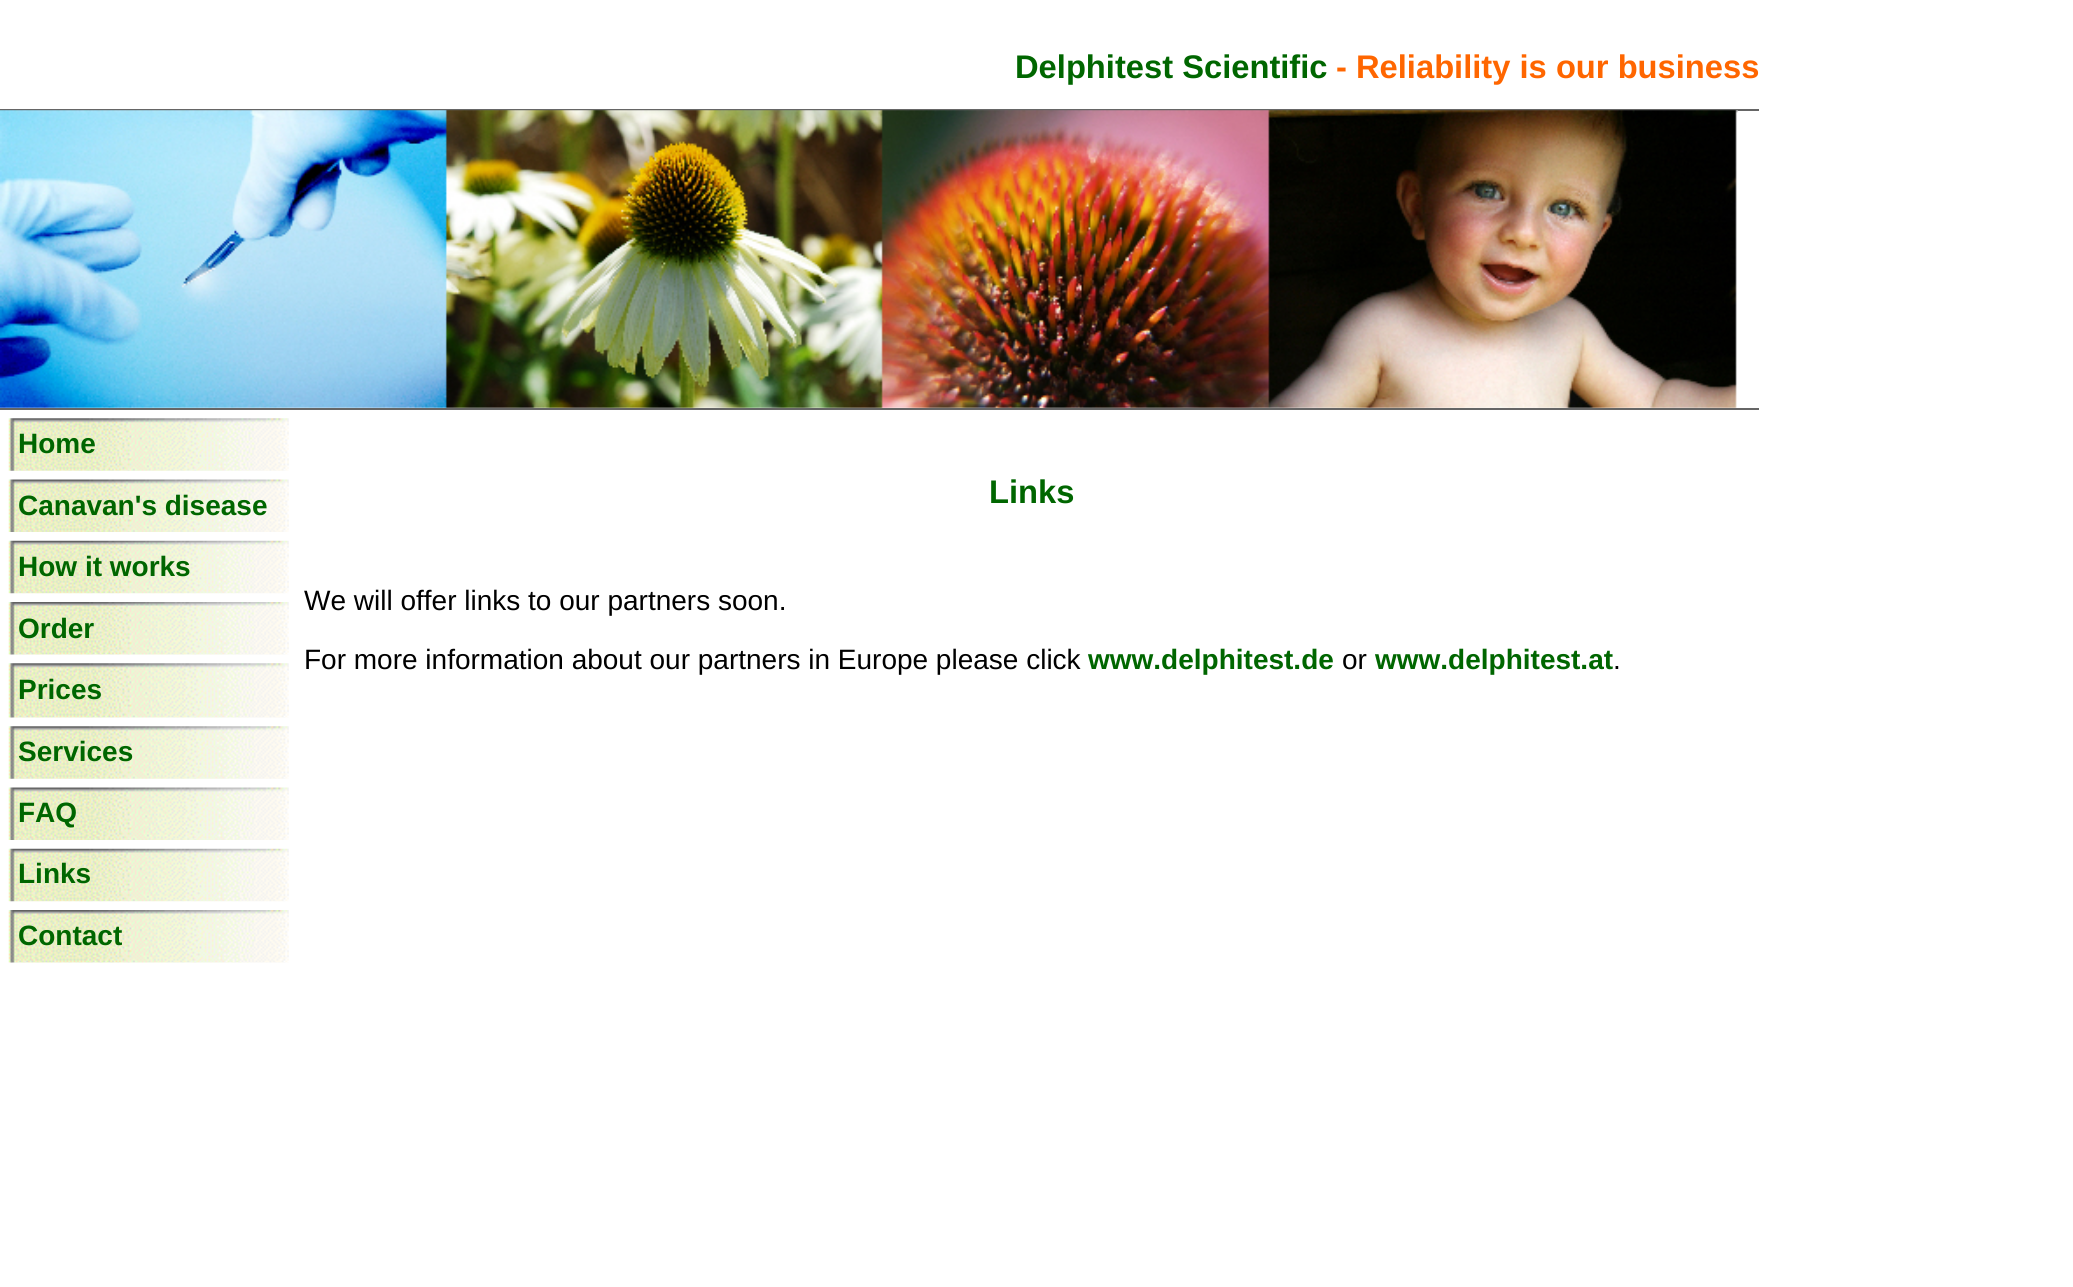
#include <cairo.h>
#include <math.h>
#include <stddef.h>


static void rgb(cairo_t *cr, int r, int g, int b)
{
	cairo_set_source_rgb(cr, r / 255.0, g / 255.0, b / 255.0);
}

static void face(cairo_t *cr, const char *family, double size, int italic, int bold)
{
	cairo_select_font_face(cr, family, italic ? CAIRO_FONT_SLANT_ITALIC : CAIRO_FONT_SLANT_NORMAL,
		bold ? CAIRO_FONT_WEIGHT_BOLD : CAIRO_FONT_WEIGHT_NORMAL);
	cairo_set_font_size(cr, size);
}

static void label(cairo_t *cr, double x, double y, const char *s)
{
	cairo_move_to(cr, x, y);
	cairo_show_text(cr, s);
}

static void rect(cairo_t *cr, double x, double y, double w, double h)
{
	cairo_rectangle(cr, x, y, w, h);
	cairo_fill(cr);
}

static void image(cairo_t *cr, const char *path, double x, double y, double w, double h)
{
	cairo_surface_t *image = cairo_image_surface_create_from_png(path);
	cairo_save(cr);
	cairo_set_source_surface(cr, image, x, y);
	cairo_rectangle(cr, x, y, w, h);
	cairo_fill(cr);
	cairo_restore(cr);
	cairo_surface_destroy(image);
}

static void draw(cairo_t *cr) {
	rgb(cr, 255, 255, 255);
	cairo_paint(cr);
	face(cr, "Liberation Sans", 32.7, 0, 1);
	rgb(cr, 0, 102, 0);
	label(cr, 1015, 78, "Delphitest Scientific");
	rgb(cr, 255, 102, 0);
	label(cr, 1336, 78, "- Reliability is our business");
	rgb(cr, 102, 102, 102);
	rect(cr, 0, 109, 1759, 2);
	rect(cr, 0, 408, 1759, 2);
	image(cr, "image0.png", 0, 110, 1738, 298);
	image(cr, "image1.png", 8, 418, 281, 53);
	face(cr, "Liberation Sans", 28, 0, 1);
	rgb(cr, 0, 102, 0);
	label(cr, 18, 453, "Home");
	image(cr, "image2.png", 8, 479, 281, 53);
	label(cr, 18, 515, "Canavan's disease");
	image(cr, "image3.png", 8, 540, 281, 54);
	label(cr, 18, 576, "How it works");
	image(cr, "image4.png", 8, 602, 281, 53);
	label(cr, 18, 638, "Order");
	image(cr, "image5.png", 8, 663, 281, 55);
	label(cr, 18, 699, "Prices");
	image(cr, "image1.png", 8, 726, 281, 53);
	label(cr, 18, 761, "Services");
	image(cr, "image2.png", 8, 787, 281, 53);
	label(cr, 18, 822, "FAQ");
	image(cr, "image3.png", 8, 848, 281, 54);
	label(cr, 18, 883, "Links");
	image(cr, "image6.png", 8, 910, 281, 53);
	label(cr, 18, 945, "Contact");
	face(cr, "Liberation Sans", 32.7, 0, 1);
	label(cr, 989, 503, "Links");
	face(cr, "Liberation Sans", 28, 0, 0);
	rgb(cr, 0, 0, 0);
	label(cr, 304, 610, "We will offer links to our partners soon.");
	label(cr, 304, 669, "For more information about our partners in Europe please click");
	face(cr, "Liberation Sans", 28, 0, 1);
	rgb(cr, 0, 102, 0);
	label(cr, 1088, 669, "www.delphitest.de");
	face(cr, "Liberation Sans", 28, 0, 0);
	rgb(cr, 0, 0, 0);
	label(cr, 1342, 669, "or");
	face(cr, "Liberation Sans", 28, 0, 1);
	rgb(cr, 0, 102, 0);
	label(cr, 1375, 669, "www.delphitest.at");
	face(cr, "Liberation Sans", 28, 0, 0);
	rgb(cr, 0, 0, 0);
	label(cr, 1613, 669, ".");
}

int main(void) {
	cairo_surface_t *surface = cairo_image_surface_create(CAIRO_FORMAT_RGB24, 2073, 1287);
	cairo_t *cr = cairo_create(surface);
	cairo_font_options_t *options = cairo_font_options_create();
	cairo_font_options_set_hint_metrics(options, CAIRO_HINT_METRICS_OFF);
	cairo_font_options_set_hint_style(options, CAIRO_HINT_STYLE_NONE);
	cairo_set_font_options(cr, options);
	cairo_set_miter_limit(cr, 4);
	draw(cr);
	cairo_surface_write_to_png(surface, "render.png");
	cairo_font_options_destroy(options);
	cairo_destroy(cr);
	cairo_surface_destroy(surface);
	return 0;
}
